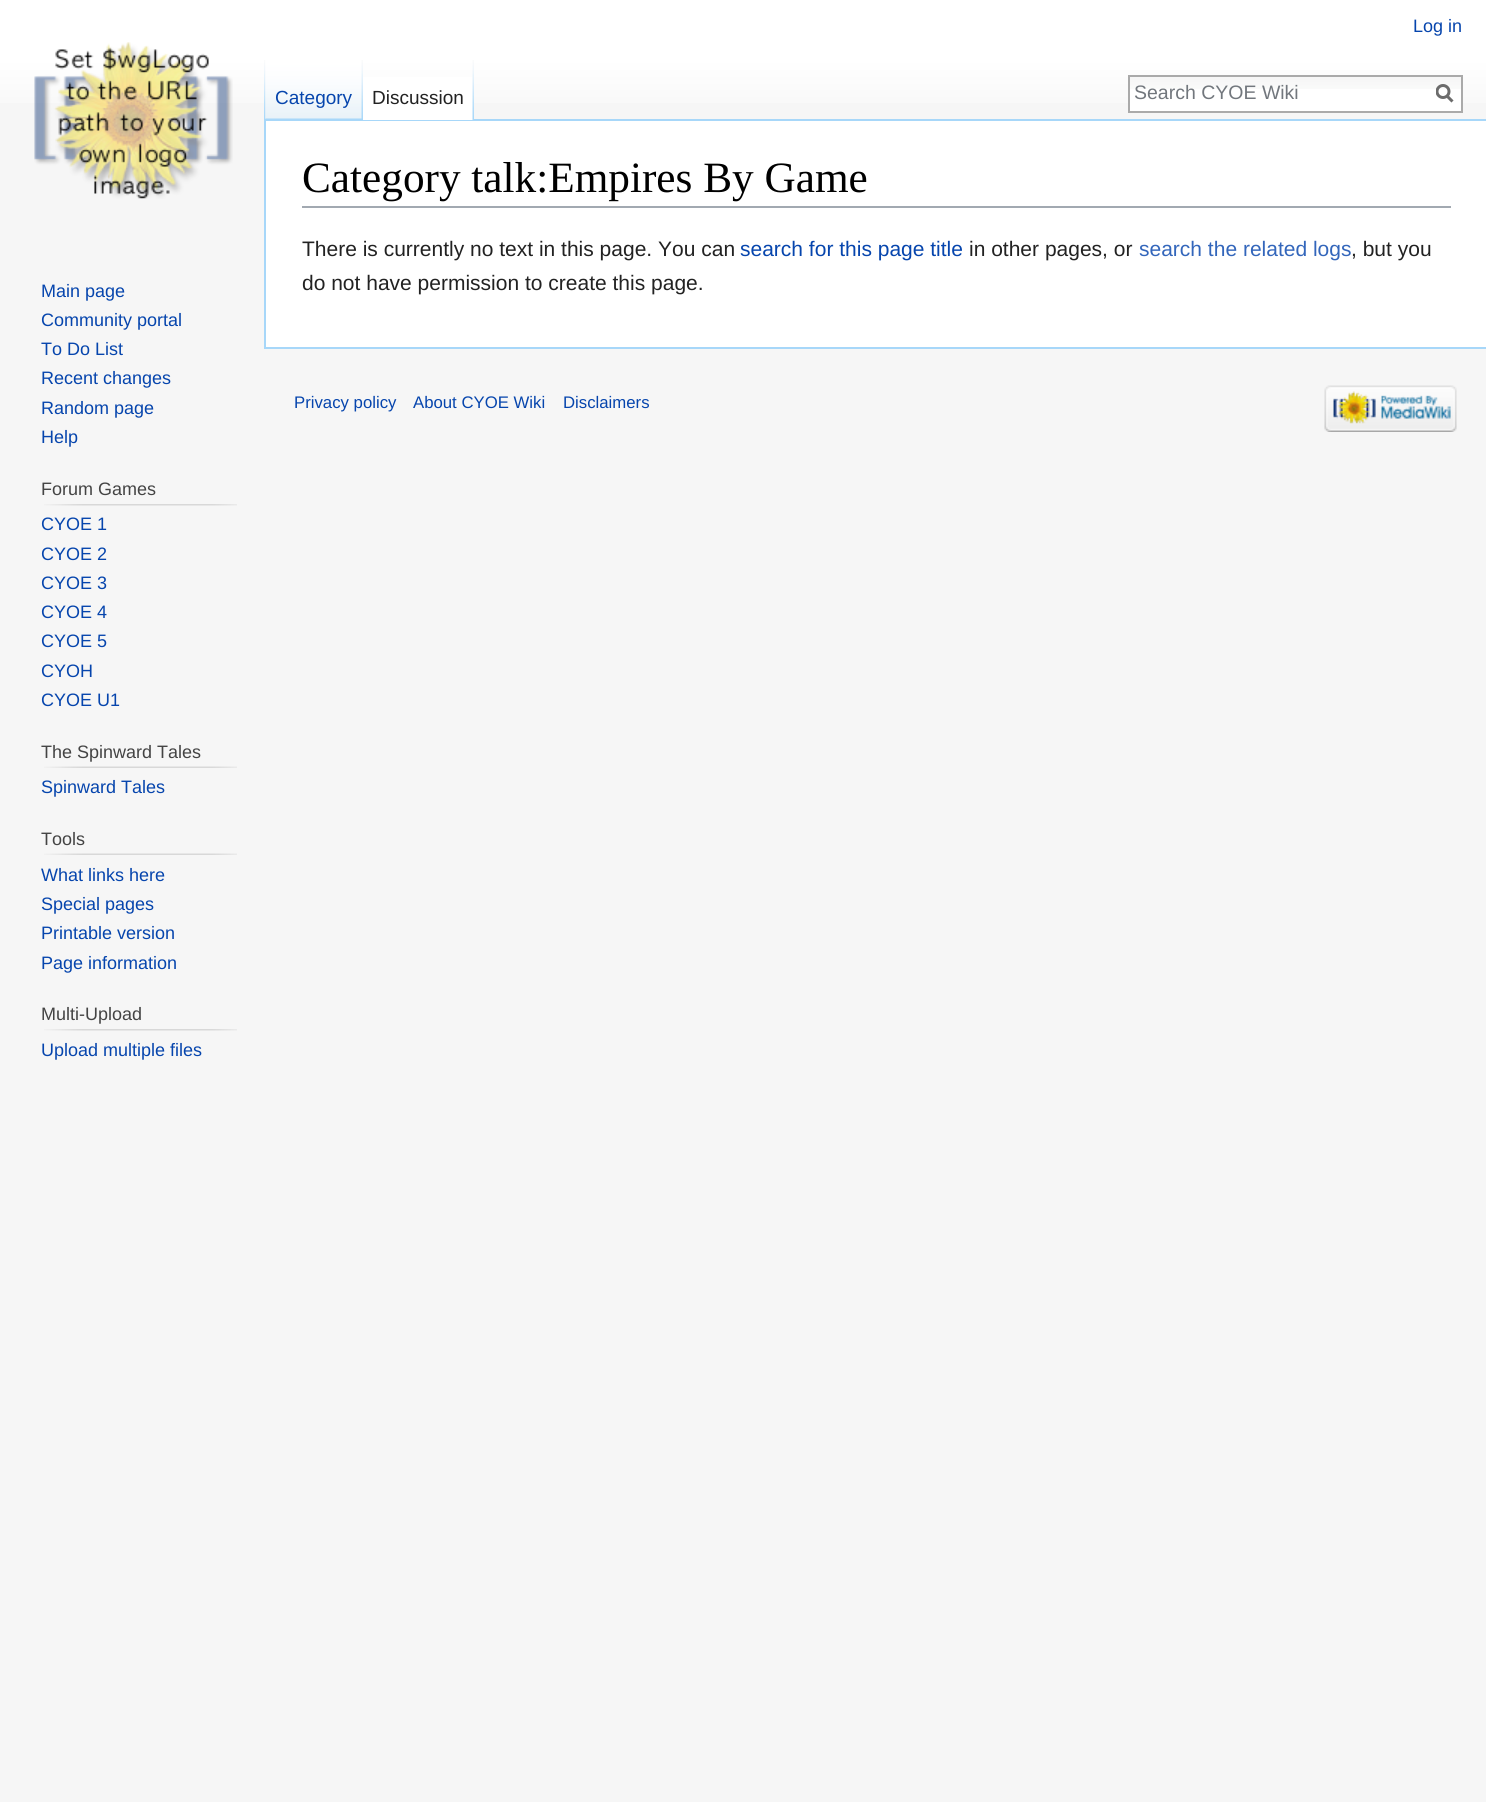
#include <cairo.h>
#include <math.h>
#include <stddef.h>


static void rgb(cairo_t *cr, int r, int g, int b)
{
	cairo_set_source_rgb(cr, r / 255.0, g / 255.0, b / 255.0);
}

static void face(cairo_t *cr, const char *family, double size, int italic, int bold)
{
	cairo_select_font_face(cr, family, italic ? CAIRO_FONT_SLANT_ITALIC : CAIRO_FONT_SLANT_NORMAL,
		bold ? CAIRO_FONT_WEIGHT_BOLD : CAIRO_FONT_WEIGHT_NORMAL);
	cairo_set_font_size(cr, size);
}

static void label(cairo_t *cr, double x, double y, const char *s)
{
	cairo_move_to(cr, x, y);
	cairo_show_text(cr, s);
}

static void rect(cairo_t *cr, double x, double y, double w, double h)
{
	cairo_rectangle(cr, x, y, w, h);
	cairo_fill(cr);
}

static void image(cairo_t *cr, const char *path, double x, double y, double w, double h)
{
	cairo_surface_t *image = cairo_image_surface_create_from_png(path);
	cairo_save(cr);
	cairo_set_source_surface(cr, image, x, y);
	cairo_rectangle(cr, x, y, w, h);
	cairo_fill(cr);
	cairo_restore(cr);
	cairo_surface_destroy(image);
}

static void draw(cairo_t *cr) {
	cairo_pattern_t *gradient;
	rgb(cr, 246, 246, 246);
	cairo_paint(cr);
	gradient = cairo_pattern_create_linear(743, 0, 743, 120);
	cairo_pattern_add_color_stop_rgba(gradient, 0.5, 1, 1, 1, 1);
	cairo_pattern_add_color_stop_rgba(gradient, 1, 0.965, 0.965, 0.965, 1);
	cairo_set_source(cr, gradient);
	cairo_pattern_destroy(gradient);
	rect(cr, 0, 0, 1486, 103);
	face(cr, "Liberation Sans", 18, 0, 0);
	rgb(cr, 6, 69, 173);
	label(cr, 1413, 32, "Log in");
	image(cr, "image0.png", 264, 60, 2, 59);
	rgb(cr, 167, 215, 249);
	rect(cr, 264, 119, 1222, 2);
	rect(cr, 264, 347, 1222, 2);
	rect(cr, 264, 119, 2, 229);
	image(cr, "image1.png", 265, 60, 98, 60);
	image(cr, "image2.png", 361, 60, 2, 59);
	face(cr, "Liberation Sans", 19, 0, 0);
	rgb(cr, 6, 69, 173);
	label(cr, 275, 104, "Category");
	rgb(cr, 255, 255, 255);
	rect(cr, 363, 77, 110, 43);
	image(cr, "image3.png", 472, 60, 2, 60);
	rgb(cr, 34, 34, 34);
	label(cr, 372, 104, "Discussion");
	rgb(cr, 255, 255, 255);
	rect(cr, 1130, 89, 331, 22);
	image(cr, "image4.png", 1130, 77, 331, 12);
	cairo_rectangle(cr, 1129, 76, 333, 36);
	rgb(cr, 170, 170, 170);
	cairo_stroke(cr);
	face(cr, "Liberation Sans", 19.5, 0, 0);
	rgb(cr, 114, 119, 125);
	label(cr, 1134, 99, "Search CYOE Wiki");
	cairo_new_path(cr);
	cairo_move_to(cr, 1452.5, 101.5);
	cairo_line_to(cr, 1446.5, 95.5);
	rgb(cr, 108, 108, 108);
	cairo_set_line_width(cr, 3);
	cairo_stroke(cr);
	cairo_save(cr);
	cairo_rectangle(cr, 1436, 84, 18, 20);
	cairo_clip(cr);
	cairo_arc(cr, 1443, 91.5, 6, 0, 2 * M_PI);
	cairo_stroke(cr);
	cairo_restore(cr);
	image(cr, "image5.png", 34, 42, 199, 157);
	face(cr, "Liberation Sans", 18, 0, 0);
	rgb(cr, 6, 69, 173);
	label(cr, 41, 297, "Main page");
	label(cr, 41, 326, "Community portal");
	label(cr, 41, 355, "To Do List");
	label(cr, 41, 384, "Recent changes");
	label(cr, 41, 414, "Random page");
	label(cr, 41, 443, "Help");
	rgb(cr, 68, 68, 68);
	label(cr, 41, 495, "Forum Games");
	image(cr, "image6.png", 44, 504, 193, 2);
	rgb(cr, 6, 69, 173);
	label(cr, 41, 530, "CYOE 1");
	label(cr, 41, 560, "CYOE 2");
	label(cr, 41, 589, "CYOE 3");
	label(cr, 41, 618, "CYOE 4");
	label(cr, 41, 647, "CYOE 5");
	label(cr, 41, 677, "CYOH");
	label(cr, 41, 706, "CYOE U1");
	rgb(cr, 68, 68, 68);
	label(cr, 41, 758, "The Spinward Tales");
	image(cr, "image7.png", 44, 766, 193, 2);
	rgb(cr, 6, 69, 173);
	label(cr, 41, 793, "Spinward Tales");
	rgb(cr, 68, 68, 68);
	label(cr, 41, 845, "Tools");
	image(cr, "image7.png", 44, 853, 193, 2);
	rgb(cr, 6, 69, 173);
	label(cr, 41, 881, "What links here");
	label(cr, 41, 910, "Special pages");
	label(cr, 41, 939, "Printable version");
	label(cr, 41, 969, "Page information");
	rgb(cr, 68, 68, 68);
	label(cr, 41, 1020, "Multi-Upload");
	image(cr, "image6.png", 44, 1029, 193, 2);
	rgb(cr, 6, 69, 173);
	label(cr, 41, 1056, "Upload multiple files");
	rgb(cr, 255, 255, 255);
	rect(cr, 266, 121, 1220, 226);
	rgb(cr, 162, 169, 177);
	rect(cr, 302, 206, 1149, 2);
	face(cr, "Liberation Serif", 43.25, 0, 0);
	rgb(cr, 0, 0, 0);
	label(cr, 302, 192, "Category talk:Empires By Game");
	face(cr, "Liberation Sans", 21, 0, 0);
	rgb(cr, 34, 34, 34);
	label(cr, 302, 256, "There is currently no text in this page. You can");
	rgb(cr, 6, 69, 173);
	label(cr, 740, 256, "search for this page title");
	rgb(cr, 34, 34, 34);
	label(cr, 969, 256, "in other pages, or");
	rgb(cr, 51, 102, 187);
	label(cr, 1139, 256, "search the related logs");
	rgb(cr, 34, 34, 34);
	label(cr, 1351, 256, ", but you");
	label(cr, 302, 290, "do not have permission to create this page.");
	face(cr, "Liberation Sans", 16.75, 0, 0);
	rgb(cr, 6, 69, 173);
	label(cr, 294, 408, "Privacy policy");
	label(cr, 413, 408, "About CYOE Wiki");
	label(cr, 563, 408, "Disclaimers");
	image(cr, "image8.png", 1324, 385, 133, 47);
}

int main(void) {
	cairo_surface_t *surface = cairo_image_surface_create(CAIRO_FORMAT_RGB24, 1486, 1802);
	cairo_t *cr = cairo_create(surface);
	cairo_font_options_t *options = cairo_font_options_create();
	cairo_font_options_set_hint_metrics(options, CAIRO_HINT_METRICS_OFF);
	cairo_font_options_set_hint_style(options, CAIRO_HINT_STYLE_NONE);
	cairo_set_font_options(cr, options);
	cairo_set_miter_limit(cr, 4);
	draw(cr);
	cairo_surface_write_to_png(surface, "render.png");
	cairo_font_options_destroy(options);
	cairo_destroy(cr);
	cairo_surface_destroy(surface);
	return 0;
}
